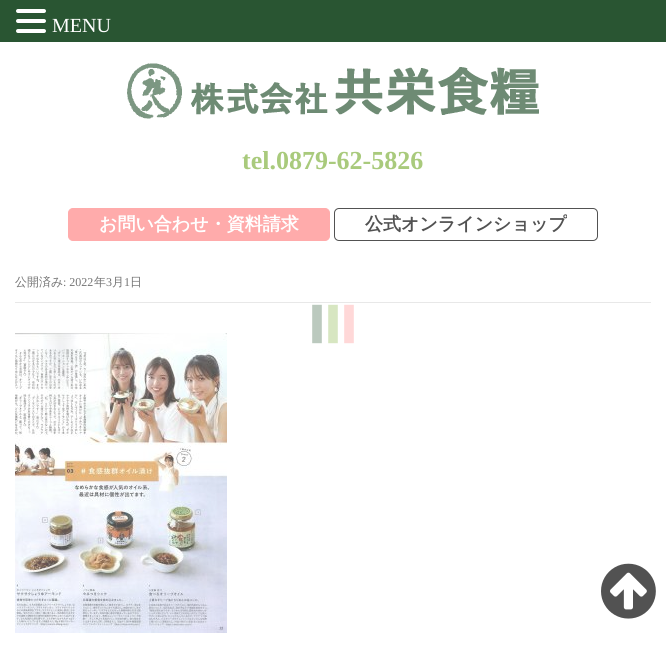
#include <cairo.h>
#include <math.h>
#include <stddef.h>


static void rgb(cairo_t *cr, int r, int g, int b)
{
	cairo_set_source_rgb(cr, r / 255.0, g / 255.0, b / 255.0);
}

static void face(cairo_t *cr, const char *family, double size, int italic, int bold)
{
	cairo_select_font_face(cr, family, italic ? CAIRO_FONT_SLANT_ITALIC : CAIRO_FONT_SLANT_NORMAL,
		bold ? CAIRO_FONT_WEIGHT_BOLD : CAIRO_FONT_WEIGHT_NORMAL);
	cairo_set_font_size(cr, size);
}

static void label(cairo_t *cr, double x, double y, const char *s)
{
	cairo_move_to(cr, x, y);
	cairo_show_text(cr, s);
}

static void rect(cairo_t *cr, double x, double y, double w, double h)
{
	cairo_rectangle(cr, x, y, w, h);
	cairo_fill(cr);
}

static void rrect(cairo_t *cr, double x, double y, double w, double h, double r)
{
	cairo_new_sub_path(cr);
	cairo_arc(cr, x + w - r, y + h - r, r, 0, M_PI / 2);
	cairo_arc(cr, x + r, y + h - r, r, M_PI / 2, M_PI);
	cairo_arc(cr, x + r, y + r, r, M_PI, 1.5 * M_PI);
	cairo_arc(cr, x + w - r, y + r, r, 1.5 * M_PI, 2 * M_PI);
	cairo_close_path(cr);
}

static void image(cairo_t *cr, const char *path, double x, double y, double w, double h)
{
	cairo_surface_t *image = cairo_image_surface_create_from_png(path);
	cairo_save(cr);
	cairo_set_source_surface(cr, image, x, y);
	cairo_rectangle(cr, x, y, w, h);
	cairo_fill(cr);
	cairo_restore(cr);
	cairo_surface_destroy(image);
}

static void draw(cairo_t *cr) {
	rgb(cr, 255, 255, 255);
	cairo_paint(cr);
	rgb(cr, 41, 85, 50);
	rect(cr, 0, 0, 666, 42);
	rgb(cr, 255, 255, 255);
	rrect(cr, 16, 9, 30, 4, 2);
	cairo_fill(cr);
	rrect(cr, 16, 19, 30, 4, 2);
	cairo_fill(cr);
	rrect(cr, 16, 29, 30, 4, 2);
	cairo_fill(cr);
	face(cr, "Liberation Serif", 20, 0, 0);
	label(cr, 52, 32, "MENU");
	image(cr, "image0.png", 127, 63, 412, 56);
	face(cr, "Liberation Serif", 26, 0, 1);
	rgb(cr, 169, 202, 124);
	label(cr, 242, 169, "tel.0879-62-5826");
	rgb(cr, 255, 171, 171);
	rrect(cr, 68.5, 208.5, 261, 32, 4.5);
	cairo_fill_preserve(cr);
	cairo_set_line_width(cr, 1);
	cairo_stroke(cr);
	face(cr, "WenQuanYi Zen Hei", 18, 0, 1);
	rgb(cr, 255, 255, 255);
	label(cr, 99, 230, "お問い合わせ・資料請求");
	rrect(cr, 334.5, 208.5, 263, 32, 4.5);
	rgb(cr, 82, 82, 82);
	cairo_stroke(cr);
	label(cr, 365, 230, "公式オンラインショップ");
	rgb(cr, 232, 232, 232);
	rect(cr, 15, 302, 636, 1);
	face(cr, "WenQuanYi Zen Hei Medium", 12, 0, 0);
	rgb(cr, 116, 116, 116);
	label(cr, 15, 286, "公開済み");
	face(cr, "Liberation Serif", 12, 0, 0);
	label(cr, 63, 286, ": 2022");
	face(cr, "WenQuanYi Zen Hei Medium", 12, 0, 0);
	label(cr, 94, 286, "年");
	face(cr, "Liberation Serif", 12, 0, 0);
	label(cr, 106, 286, "3");
	face(cr, "WenQuanYi Zen Hei Medium", 12, 0, 0);
	label(cr, 112, 286, "月");
	face(cr, "Liberation Serif", 12, 0, 0);
	label(cr, 124, 286, "1");
	face(cr, "WenQuanYi Zen Hei Medium", 12, 0, 0);
	label(cr, 130, 286, "日");
	image(cr, "image1.png", 15, 333, 212, 300);
	image(cr, "image2.png", 601, 563, 55, 56);
	image(cr, "image3.png", 312, 304, 42, 40);
}

int main(void) {
	cairo_surface_t *surface = cairo_image_surface_create(CAIRO_FORMAT_RGB24, 666, 648);
	cairo_t *cr = cairo_create(surface);
	cairo_font_options_t *options = cairo_font_options_create();
	cairo_font_options_set_hint_metrics(options, CAIRO_HINT_METRICS_OFF);
	cairo_font_options_set_hint_style(options, CAIRO_HINT_STYLE_NONE);
	cairo_set_font_options(cr, options);
	cairo_set_miter_limit(cr, 4);
	draw(cr);
	cairo_surface_write_to_png(surface, "render.png");
	cairo_font_options_destroy(options);
	cairo_destroy(cr);
	cairo_surface_destroy(surface);
	return 0;
}
